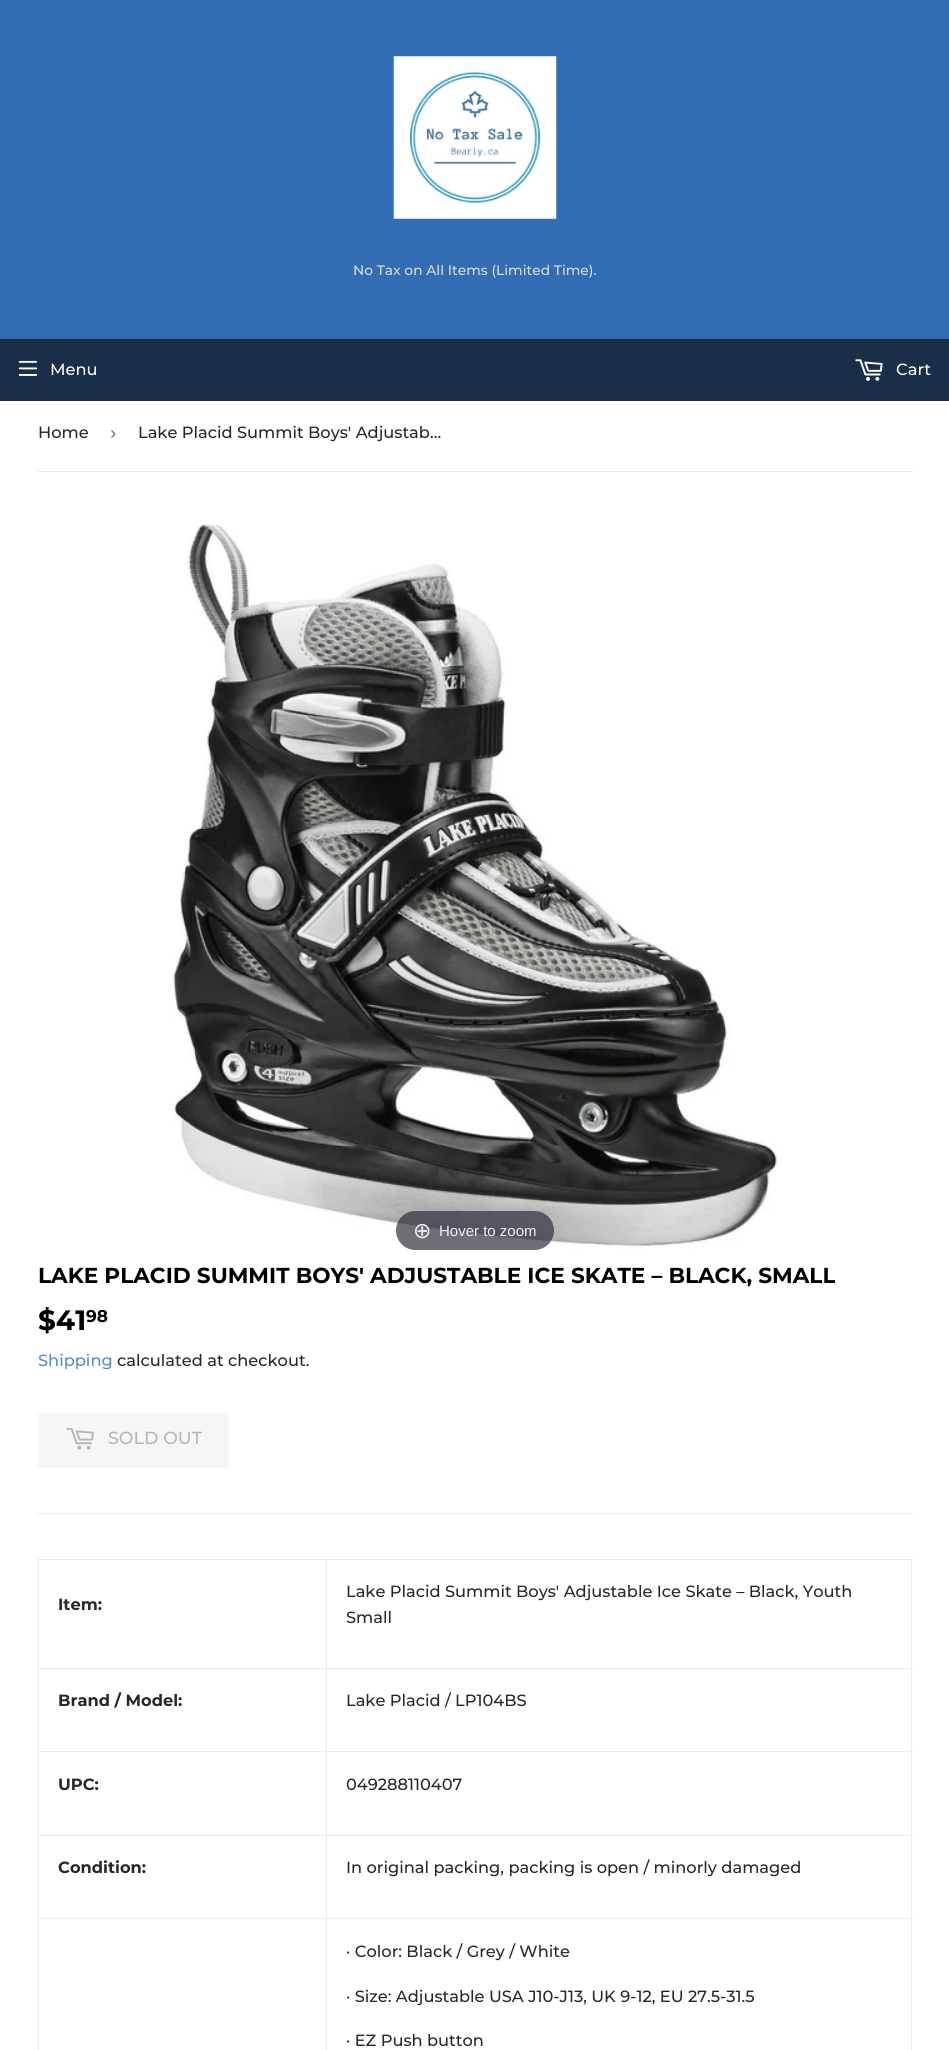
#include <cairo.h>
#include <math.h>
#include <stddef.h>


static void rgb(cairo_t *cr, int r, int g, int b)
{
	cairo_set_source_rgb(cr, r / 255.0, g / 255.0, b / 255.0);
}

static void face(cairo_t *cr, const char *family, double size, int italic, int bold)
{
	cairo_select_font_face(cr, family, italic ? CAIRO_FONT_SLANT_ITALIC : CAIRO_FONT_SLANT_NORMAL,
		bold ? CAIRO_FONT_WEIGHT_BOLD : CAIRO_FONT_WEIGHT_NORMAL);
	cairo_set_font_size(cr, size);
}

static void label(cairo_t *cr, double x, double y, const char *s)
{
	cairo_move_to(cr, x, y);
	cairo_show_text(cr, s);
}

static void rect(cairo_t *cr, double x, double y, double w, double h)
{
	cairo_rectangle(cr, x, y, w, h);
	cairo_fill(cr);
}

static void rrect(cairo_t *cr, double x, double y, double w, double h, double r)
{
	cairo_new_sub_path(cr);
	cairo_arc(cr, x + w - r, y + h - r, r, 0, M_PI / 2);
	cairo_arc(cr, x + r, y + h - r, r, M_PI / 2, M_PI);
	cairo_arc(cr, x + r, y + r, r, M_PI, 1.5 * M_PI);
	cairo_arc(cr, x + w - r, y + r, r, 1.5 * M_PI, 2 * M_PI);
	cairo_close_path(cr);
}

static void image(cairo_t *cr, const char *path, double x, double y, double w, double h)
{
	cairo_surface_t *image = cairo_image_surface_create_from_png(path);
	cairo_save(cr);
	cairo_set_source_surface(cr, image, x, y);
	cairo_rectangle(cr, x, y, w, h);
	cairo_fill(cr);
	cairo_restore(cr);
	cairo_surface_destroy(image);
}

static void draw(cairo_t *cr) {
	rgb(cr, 255, 255, 255);
	cairo_paint(cr);
	rgb(cr, 50, 108, 179);
	rect(cr, 0, 0, 949, 339);
	image(cr, "image0.png", 393, 56, 164, 163);
	face(cr, "Montserrat Medium", 13.8, 0, 0);
	rgb(cr, 220, 220, 220);
	label(cr, 353, 275, "No Tax on All Items (Limited Time).");
	rgb(cr, 24, 46, 73);
	rect(cr, 0, 339, 949, 62);
	image(cr, "image1.png", 18, 360, 20, 16);
	face(cr, "Montserrat Medium", 16.25, 0, 0);
	rgb(cr, 255, 255, 255);
	label(cr, 50, 375, "Menu");
	image(cr, "image2.png", 855, 359, 28, 22);
	label(cr, 896, 375, "Cart");
	rgb(cr, 236, 236, 236);
	rect(cr, 38, 471, 875, 1);
	rgb(cr, 40, 38, 38);
	label(cr, 38, 438, "Home");
	face(cr, "Liberation Sans", 19, 0, 0);
	rgb(cr, 118, 118, 118);
	label(cr, 110, 439, "›");
	face(cr, "Montserrat Medium", 16.25, 0, 0);
	rgb(cr, 40, 38, 38);
	label(cr, 138, 438, "Lake Placid Summit Boys' Adjustab…");
	image(cr, "image3.png", 170, 524, 610, 726);
	cairo_set_source_rgba(cr, 0.192, 0.2, 0.239, 0.7);
	rrect(cr, 396, 1211, 158, 39, 19.5);
	cairo_fill(cr);
	face(cr, "DejaVu Sans", 22, 0, 0);
	rgb(cr, 238, 238, 238);
	label(cr, 413, 1238, "⊕");
	face(cr, "Liberation Sans", 15, 0, 0);
	label(cr, 439, 1236, "Hover to zoom");
	face(cr, "Montserrat", 21.65, 0, 1);
	rgb(cr, 0, 0, 0);
	label(cr, 38, 1283, "LAKE PLACID SUMMIT BOYS' ADJUSTABLE ICE SKATE – BLACK, SMALL");
	face(cr, "Montserrat", 28, 0, 1);
	label(cr, 38, 1330, "$41");
	face(cr, "Montserrat", 17, 0, 1);
	label(cr, 86, 1322, "98");
	face(cr, "Montserrat Medium", 16.25, 0, 0);
	rgb(cr, 82, 142, 193);
	label(cr, 38, 1366, "Shipping");
	rgb(cr, 40, 38, 38);
	label(cr, 117, 1366, "calculated at checkout.");
	rgb(cr, 246, 246, 246);
	rrect(cr, 38, 1413, 191, 55, 2.5);
	cairo_fill(cr);
	image(cr, "image4.png", 66, 1428, 28, 22);
	face(cr, "Montserrat Medium", 17.5, 0, 0);
	rgb(cr, 182, 182, 182);
	label(cr, 108, 1444, "SOLD OUT");
	rgb(cr, 236, 236, 236);
	rect(cr, 38, 1513, 875, 1);
	rect(cr, 326, 1559, 587, 1);
	rect(cr, 326, 1668, 587, 1);
	rect(cr, 326, 1751, 587, 1);
	rect(cr, 326, 1835, 587, 1);
	rect(cr, 326, 1918, 587, 1);
	rect(cr, 326, 1918, 1, 132);
	rect(cr, 38, 1918, 290, 1);
	rect(cr, 326, 1835, 1, 84);
	rect(cr, 38, 1835, 290, 1);
	rect(cr, 326, 1751, 1, 85);
	rect(cr, 38, 1751, 290, 1);
	rect(cr, 326, 1668, 1, 85);
	rect(cr, 38, 1668, 290, 1);
	rect(cr, 326, 1559, 1, 110);
	rect(cr, 38, 1559, 290, 1);
	rect(cr, 38, 1918, 1, 132);
	rect(cr, 38, 1835, 1, 84);
	rect(cr, 38, 1751, 1, 85);
	rect(cr, 38, 1668, 1, 85);
	rect(cr, 38, 1559, 1, 110);
	face(cr, "Montserrat", 16.25, 0, 1);
	rgb(cr, 40, 38, 38);
	label(cr, 58, 1610, "Item:");
	rgb(cr, 236, 236, 236);
	rect(cr, 911, 1918, 1, 132);
	rect(cr, 911, 1835, 1, 84);
	rect(cr, 911, 1751, 1, 85);
	rect(cr, 911, 1668, 1, 85);
	rect(cr, 911, 1559, 1, 110);
	face(cr, "Montserrat Medium", 16.25, 0, 0);
	rgb(cr, 40, 38, 38);
	label(cr, 346, 1597, "Lake Placid Summit Boys' Adjustable Ice Skate – Black, Youth");
	label(cr, 346, 1623, "Small");
	face(cr, "Montserrat", 16.25, 0, 1);
	label(cr, 58, 1706, "Brand / Model:");
	face(cr, "Montserrat Medium", 16.25, 0, 0);
	label(cr, 346, 1706, "Lake Placid / LP104BS");
	face(cr, "Montserrat", 16.25, 0, 1);
	label(cr, 58, 1790, "UPC:");
	face(cr, "Montserrat Medium", 16.25, 0, 0);
	label(cr, 346, 1790, "049288110407");
	face(cr, "Montserrat", 16.25, 0, 1);
	label(cr, 58, 1873, "Condition:");
	face(cr, "Montserrat Medium", 16.25, 0, 0);
	label(cr, 346, 1873, "In original packing, packing is open / minorly damaged");
	label(cr, 346, 1957, "· Color: Black / Grey / White");
	label(cr, 346, 2002, "· Size: Adjustable USA J10-J13, UK 9-12, EU 27.5-31.5");
	label(cr, 346, 2046, "· EZ Push button");
}

int main(void) {
	cairo_surface_t *surface = cairo_image_surface_create(CAIRO_FORMAT_RGB24, 949, 2050);
	cairo_t *cr = cairo_create(surface);
	cairo_font_options_t *options = cairo_font_options_create();
	cairo_font_options_set_hint_metrics(options, CAIRO_HINT_METRICS_OFF);
	cairo_font_options_set_hint_style(options, CAIRO_HINT_STYLE_NONE);
	cairo_set_font_options(cr, options);
	cairo_set_miter_limit(cr, 4);
	draw(cr);
	cairo_surface_write_to_png(surface, "render.png");
	cairo_font_options_destroy(options);
	cairo_destroy(cr);
	cairo_surface_destroy(surface);
	return 0;
}
